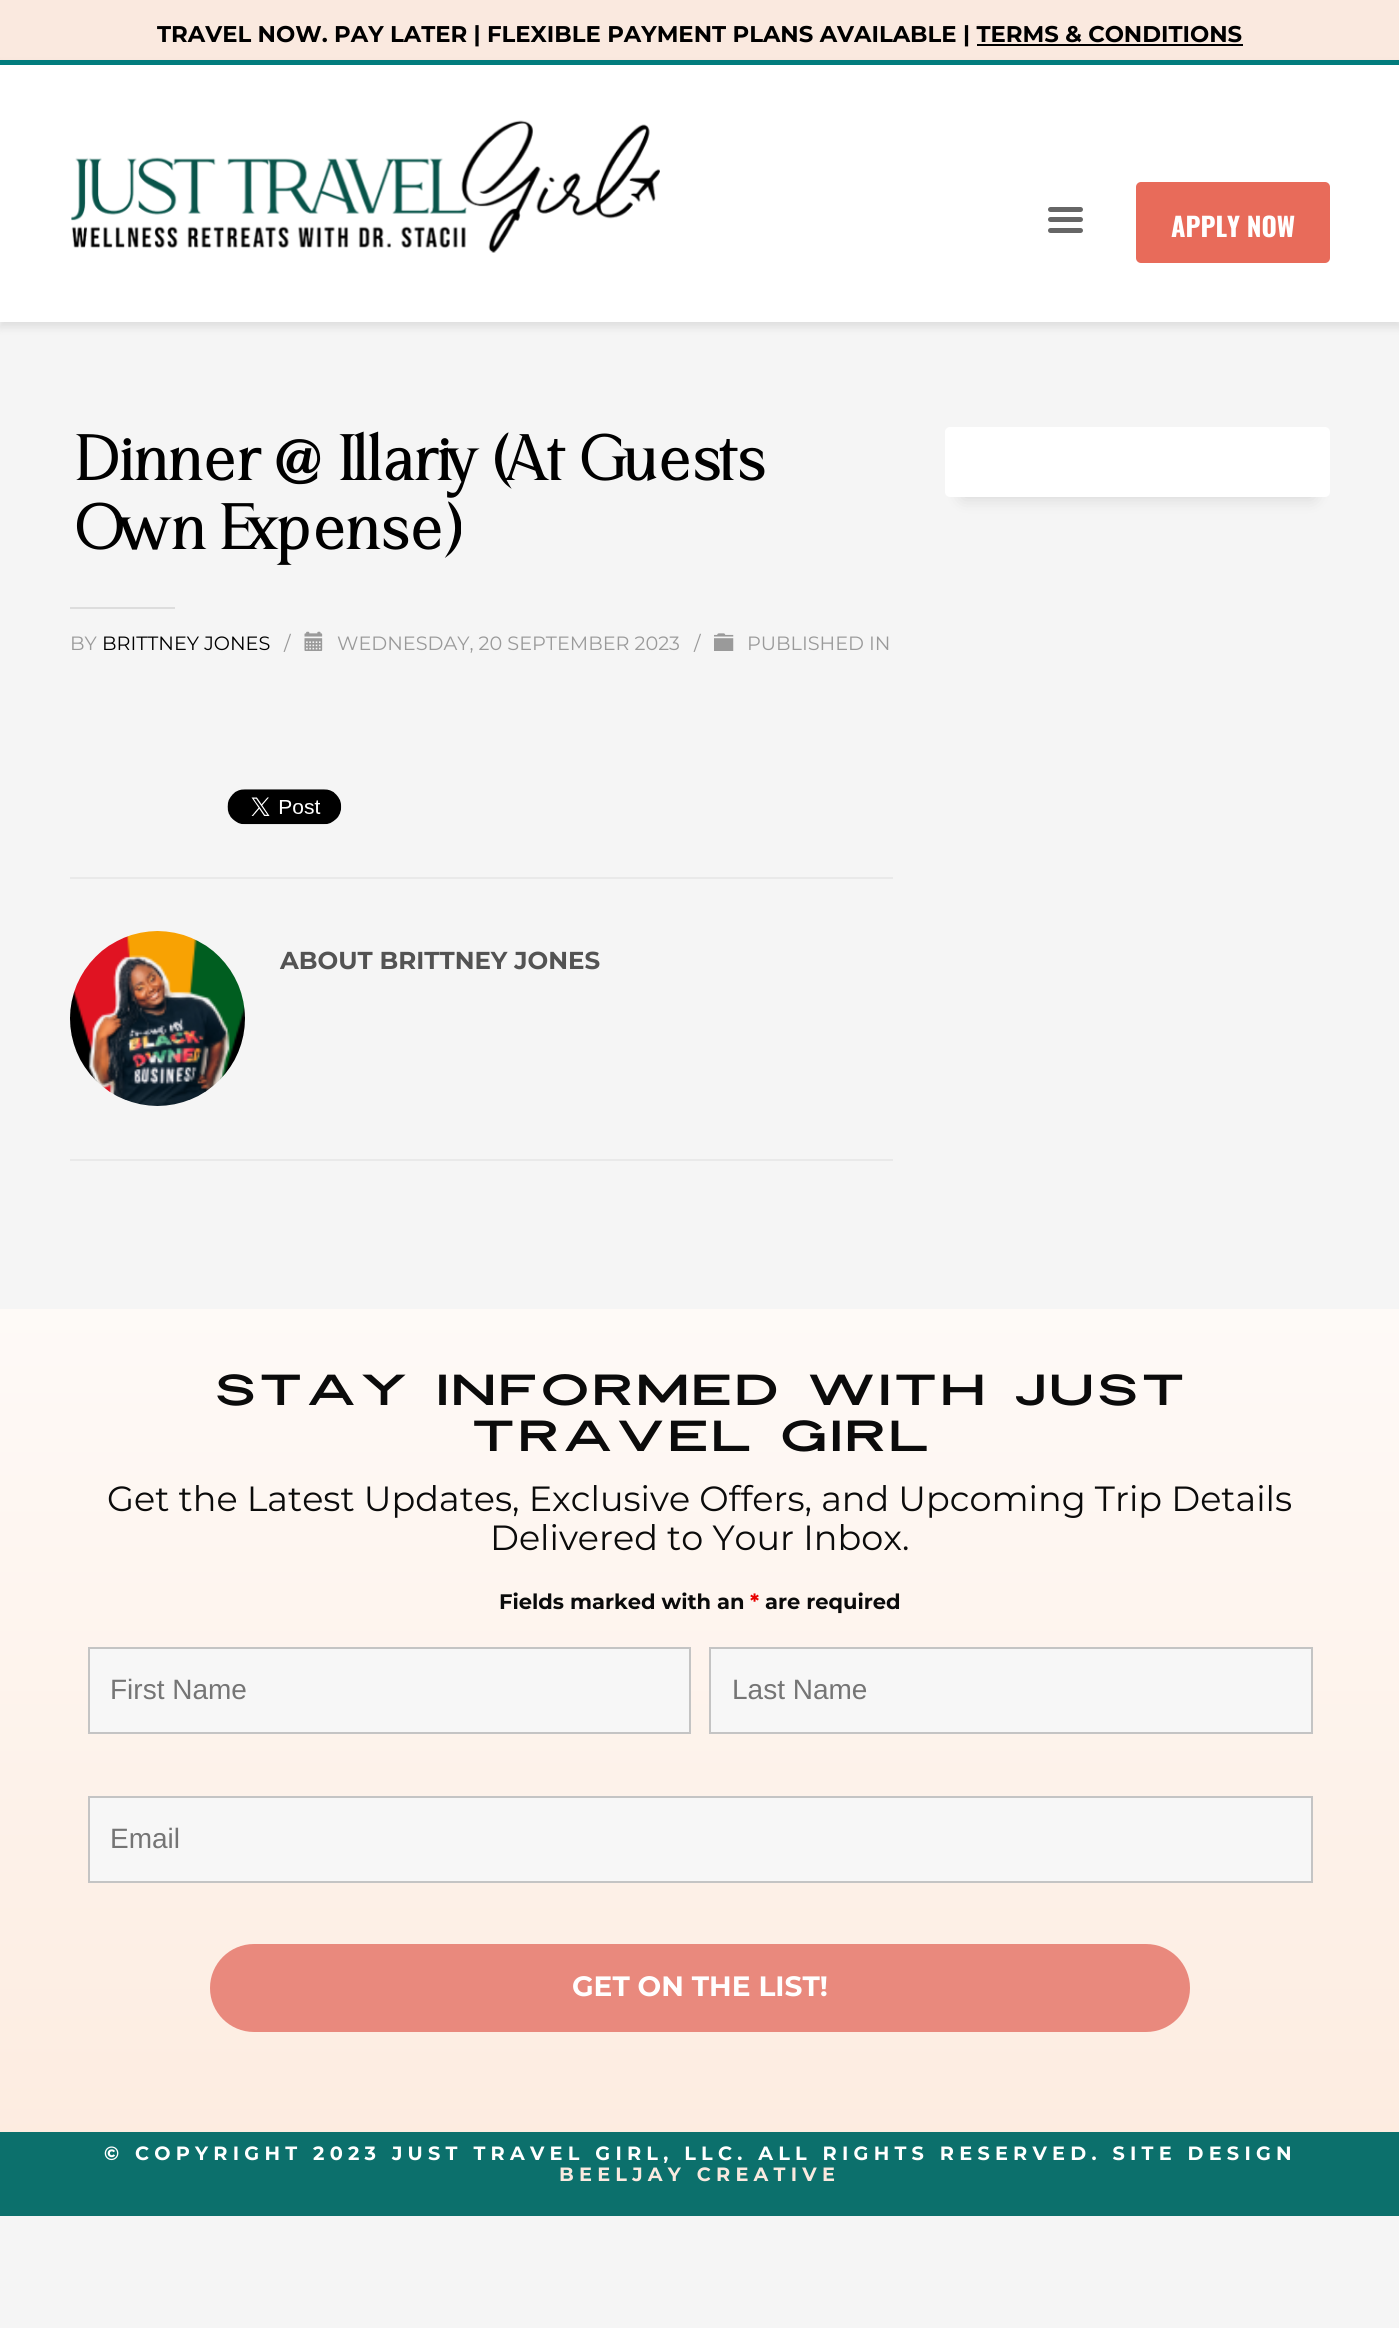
#include <cairo.h>
#include <math.h>
#include <stddef.h>


static void rgb(cairo_t *cr, int r, int g, int b)
{
	cairo_set_source_rgb(cr, r / 255.0, g / 255.0, b / 255.0);
}

static void face(cairo_t *cr, const char *family, double size, int italic, int bold)
{
	cairo_select_font_face(cr, family, italic ? CAIRO_FONT_SLANT_ITALIC : CAIRO_FONT_SLANT_NORMAL,
		bold ? CAIRO_FONT_WEIGHT_BOLD : CAIRO_FONT_WEIGHT_NORMAL);
	cairo_set_font_size(cr, size);
}

static void label(cairo_t *cr, double x, double y, const char *s)
{
	cairo_move_to(cr, x, y);
	cairo_show_text(cr, s);
}

static void tracked(cairo_t *cr, double x, double y, const char *s, double letter, double word)
{
	cairo_move_to(cr, x, y);
	while (*s) {
		char ch[5] = {0};
		int n = 0;
		do ch[n++] = *s++; while ((*s & 0xC0) == 0x80);
		cairo_show_text(cr, ch);
		cairo_rel_move_to(cr, letter + word * (*ch == ' '), 0);
	}
}

static void rect(cairo_t *cr, double x, double y, double w, double h)
{
	cairo_rectangle(cr, x, y, w, h);
	cairo_fill(cr);
}

static void rrect(cairo_t *cr, double x, double y, double w, double h, double r)
{
	cairo_new_sub_path(cr);
	cairo_arc(cr, x + w - r, y + h - r, r, 0, M_PI / 2);
	cairo_arc(cr, x + r, y + h - r, r, M_PI / 2, M_PI);
	cairo_arc(cr, x + r, y + r, r, M_PI, 1.5 * M_PI);
	cairo_arc(cr, x + w - r, y + r, r, 1.5 * M_PI, 2 * M_PI);
	cairo_close_path(cr);
}

static void soft_shadow(cairo_t *cr, double x, double y, double w, double h, double r, double blur, double alpha)
{
	cairo_push_group_with_content(cr, CAIRO_CONTENT_ALPHA);
	cairo_set_operator(cr, CAIRO_OPERATOR_SOURCE);
	for (int i = 15; i >= -15 && fmin(w, h) + blur * i / 3 > 0; i -= 2) {
		double e = blur * i / 6;
		cairo_set_source_rgba(cr, 0, 0, 0, alpha * erfc((i - 1) / 8.5) / 2);
		rrect(cr, x - e, y - e, w + 2 * e, h + 2 * e, fmax(0, fmin(r + e + blur * .6, fmin(w, h) / 2 + e)));
		cairo_fill(cr);
	}
	cairo_pattern_t *soft = cairo_pop_group(cr);
	cairo_mask(cr, soft);
	cairo_pattern_destroy(soft);
}

static void image(cairo_t *cr, const char *path, double x, double y, double w, double h)
{
	cairo_surface_t *image = cairo_image_surface_create_from_png(path);
	cairo_save(cr);
	cairo_set_source_surface(cr, image, x, y);
	cairo_rectangle(cr, x, y, w, h);
	cairo_fill(cr);
	cairo_restore(cr);
	cairo_surface_destroy(image);
}

static void draw(cairo_t *cr) {
	cairo_pattern_t *gradient;
	rgb(cr, 245, 245, 245);
	cairo_paint(cr);
	rgb(cr, 250, 233, 223);
	rect(cr, 0, 0, 1399, 60);
	face(cr, "Montserrat", 22.75, 0, 1);
	rgb(cr, 0, 0, 0);
	label(cr, 157, 42, "TRAVEL NOW. PAY LATER | FLEXIBLE PAYMENT PLANS AVAILABLE | TERMS & CONDITIONS");
	rect(cr, 977, 44, 266, 2);
	rgb(cr, 0, 0, 0);
	soft_shadow(cr, 0, 65, 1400, 262, 0, 4.5, 0.1);
	rgb(cr, 255, 255, 255);
	rect(cr, 0, 65, 1399, 257);
	rgb(cr, 2, 124, 125);
	rect(cr, 0, 60, 1399, 5);
	image(cr, "image0.png", 71, 120, 589, 133);
	rgb(cr, 102, 102, 102);
	rrect(cr, 1048, 207, 35, 5, 2.5);
	cairo_fill(cr);
	rrect(cr, 1048, 217, 35, 5, 2.5);
	cairo_fill(cr);
	rrect(cr, 1048, 228, 35, 5, 2.5);
	cairo_fill(cr);
	rgb(cr, 232, 107, 90);
	rrect(cr, 1136, 182, 194, 81, 5);
	cairo_fill(cr);
	face(cr, "Oswald", 26.25, 0, 1);
	rgb(cr, 255, 255, 255);
	label(cr, 1171, 237, "APPLY NOW");
	face(cr, "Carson", 63, 0, 1);
	rgb(cr, 0, 0, 0);
	label(cr, 70, 480, "Dinner @ Illariy (At Guests");
	label(cr, 70, 549, "Own Expense)");
	rgb(cr, 221, 221, 221);
	rect(cr, 70, 607, 105, 2);
	face(cr, "Montserrat", 19.25, 0, 0);
	rgb(cr, 154, 154, 154);
	label(cr, 70, 650, "BY");
	rgb(cr, 0, 0, 0);
	label(cr, 102, 650, "BRITTNEY JONES");
	rgb(cr, 154, 154, 154);
	label(cr, 284, 650, "/");
	image(cr, "image1.png", 304, 631, 19, 20);
	label(cr, 337, 650, "WEDNESDAY, 20 SEPTEMBER 2023");
	label(cr, 694, 650, "/");
	image(cr, "image2.png", 714, 633, 20, 18);
	label(cr, 747, 650, "PUBLISHED IN");
	image(cr, "image3.png", 227, 789, 115, 36);
	rgb(cr, 233, 233, 233);
	rect(cr, 70, 877, 823, 2);
	rect(cr, 70, 1159, 823, 2);
	image(cr, "image4.png", 70, 931, 175, 175);
	face(cr, "Montserrat", 24.5, 0, 1);
	rgb(cr, 83, 83, 83);
	label(cr, 280, 969, "ABOUT BRITTNEY JONES");
	rgb(cr, 0, 0, 0);
	soft_shadow(cr, 963, 462, 350, 35, 0, 9, 0.15);
	rgb(cr, 255, 255, 255);
	rrect(cr, 945, 427, 385, 70, 5);
	cairo_fill(cr);
	gradient = cairo_pattern_create_linear(700, 1309, 700, 2146);
	cairo_pattern_add_color_stop_rgba(gradient, 0, 0.996, 0.98, 0.969, 1);
	cairo_pattern_add_color_stop_rgba(gradient, 1, 0.992, 0.925, 0.878, 1);
	cairo_set_source(cr, gradient);
	cairo_pattern_destroy(gradient);
	rect(cr, 0, 1309, 1399, 823);
	face(cr, "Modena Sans", 42, 0, 0);
	rgb(cr, 11, 11, 11);
	label(cr, 213, 1405, "Stay Informed with Just");
	label(cr, 470, 1451, "Travel Girl");
	face(cr, "Montserrat", 35, 0, 0);
	label(cr, 107, 1511, "Get the Latest Updates, Exclusive Offers, and Upcoming Trip Details");
	label(cr, 490, 1550, "Delivered to Your Inbox.");
	face(cr, "Montserrat", 21, 0, 1);
	label(cr, 499, 1609, "Fields marked with an");
	rgb(cr, 232, 0, 0);
	label(cr, 750, 1609, "*");
	rgb(cr, 11, 11, 11);
	label(cr, 765, 1609, "are required");
	rgb(cr, 247, 247, 247);
	cairo_rectangle(cr, 89, 1648, 601, 85);
	cairo_fill_preserve(cr);
	rgb(cr, 196, 196, 196);
	cairo_stroke(cr);
	face(cr, "Liberation Sans", 28, 0, 0);
	rgb(cr, 117, 117, 117);
	label(cr, 110, 1699, "First Name");
	rgb(cr, 247, 247, 247);
	cairo_rectangle(cr, 710, 1648, 602, 85);
	cairo_fill_preserve(cr);
	rgb(cr, 196, 196, 196);
	cairo_stroke(cr);
	rgb(cr, 117, 117, 117);
	label(cr, 732, 1699, "Last Name");
	rgb(cr, 247, 247, 247);
	cairo_rectangle(cr, 89, 1797, 1223, 85);
	cairo_fill_preserve(cr);
	rgb(cr, 196, 196, 196);
	cairo_stroke(cr);
	rgb(cr, 117, 117, 117);
	label(cr, 110, 1848, "Email");
	rgb(cr, 233, 137, 125);
	rrect(cr, 210, 1944, 980, 88, 44);
	cairo_fill(cr);
	face(cr, "Montserrat", 28, 0, 1);
	rgb(cr, 255, 255, 255);
	label(cr, 572, 1996, "GET ON THE LIST!");
	rgb(cr, 12, 112, 108);
	rect(cr, 0, 2132, 1399, 84);
	face(cr, "Montserrat", 19.25, 0, 1);
	rgb(cr, 255, 255, 255);
	tracked(cr, 104, 2160, "© COPYRIGHT 2023 JUST TRAVEL GIRL, LLC. ALL RIGHTS RESERVED. SITE DESIGN", 5.25, 0);
	rgb(cr, 250, 233, 223);
	tracked(cr, 559, 2181, "BEELJAY CREATIVE", 5.25, 0);
}

int main(void) {
	cairo_surface_t *surface = cairo_image_surface_create(CAIRO_FORMAT_RGB24, 1399, 2328);
	cairo_t *cr = cairo_create(surface);
	cairo_font_options_t *options = cairo_font_options_create();
	cairo_font_options_set_hint_metrics(options, CAIRO_HINT_METRICS_OFF);
	cairo_font_options_set_hint_style(options, CAIRO_HINT_STYLE_NONE);
	cairo_set_font_options(cr, options);
	cairo_set_miter_limit(cr, 4);
	draw(cr);
	cairo_surface_write_to_png(surface, "render.png");
	cairo_font_options_destroy(options);
	cairo_destroy(cr);
	cairo_surface_destroy(surface);
	return 0;
}
